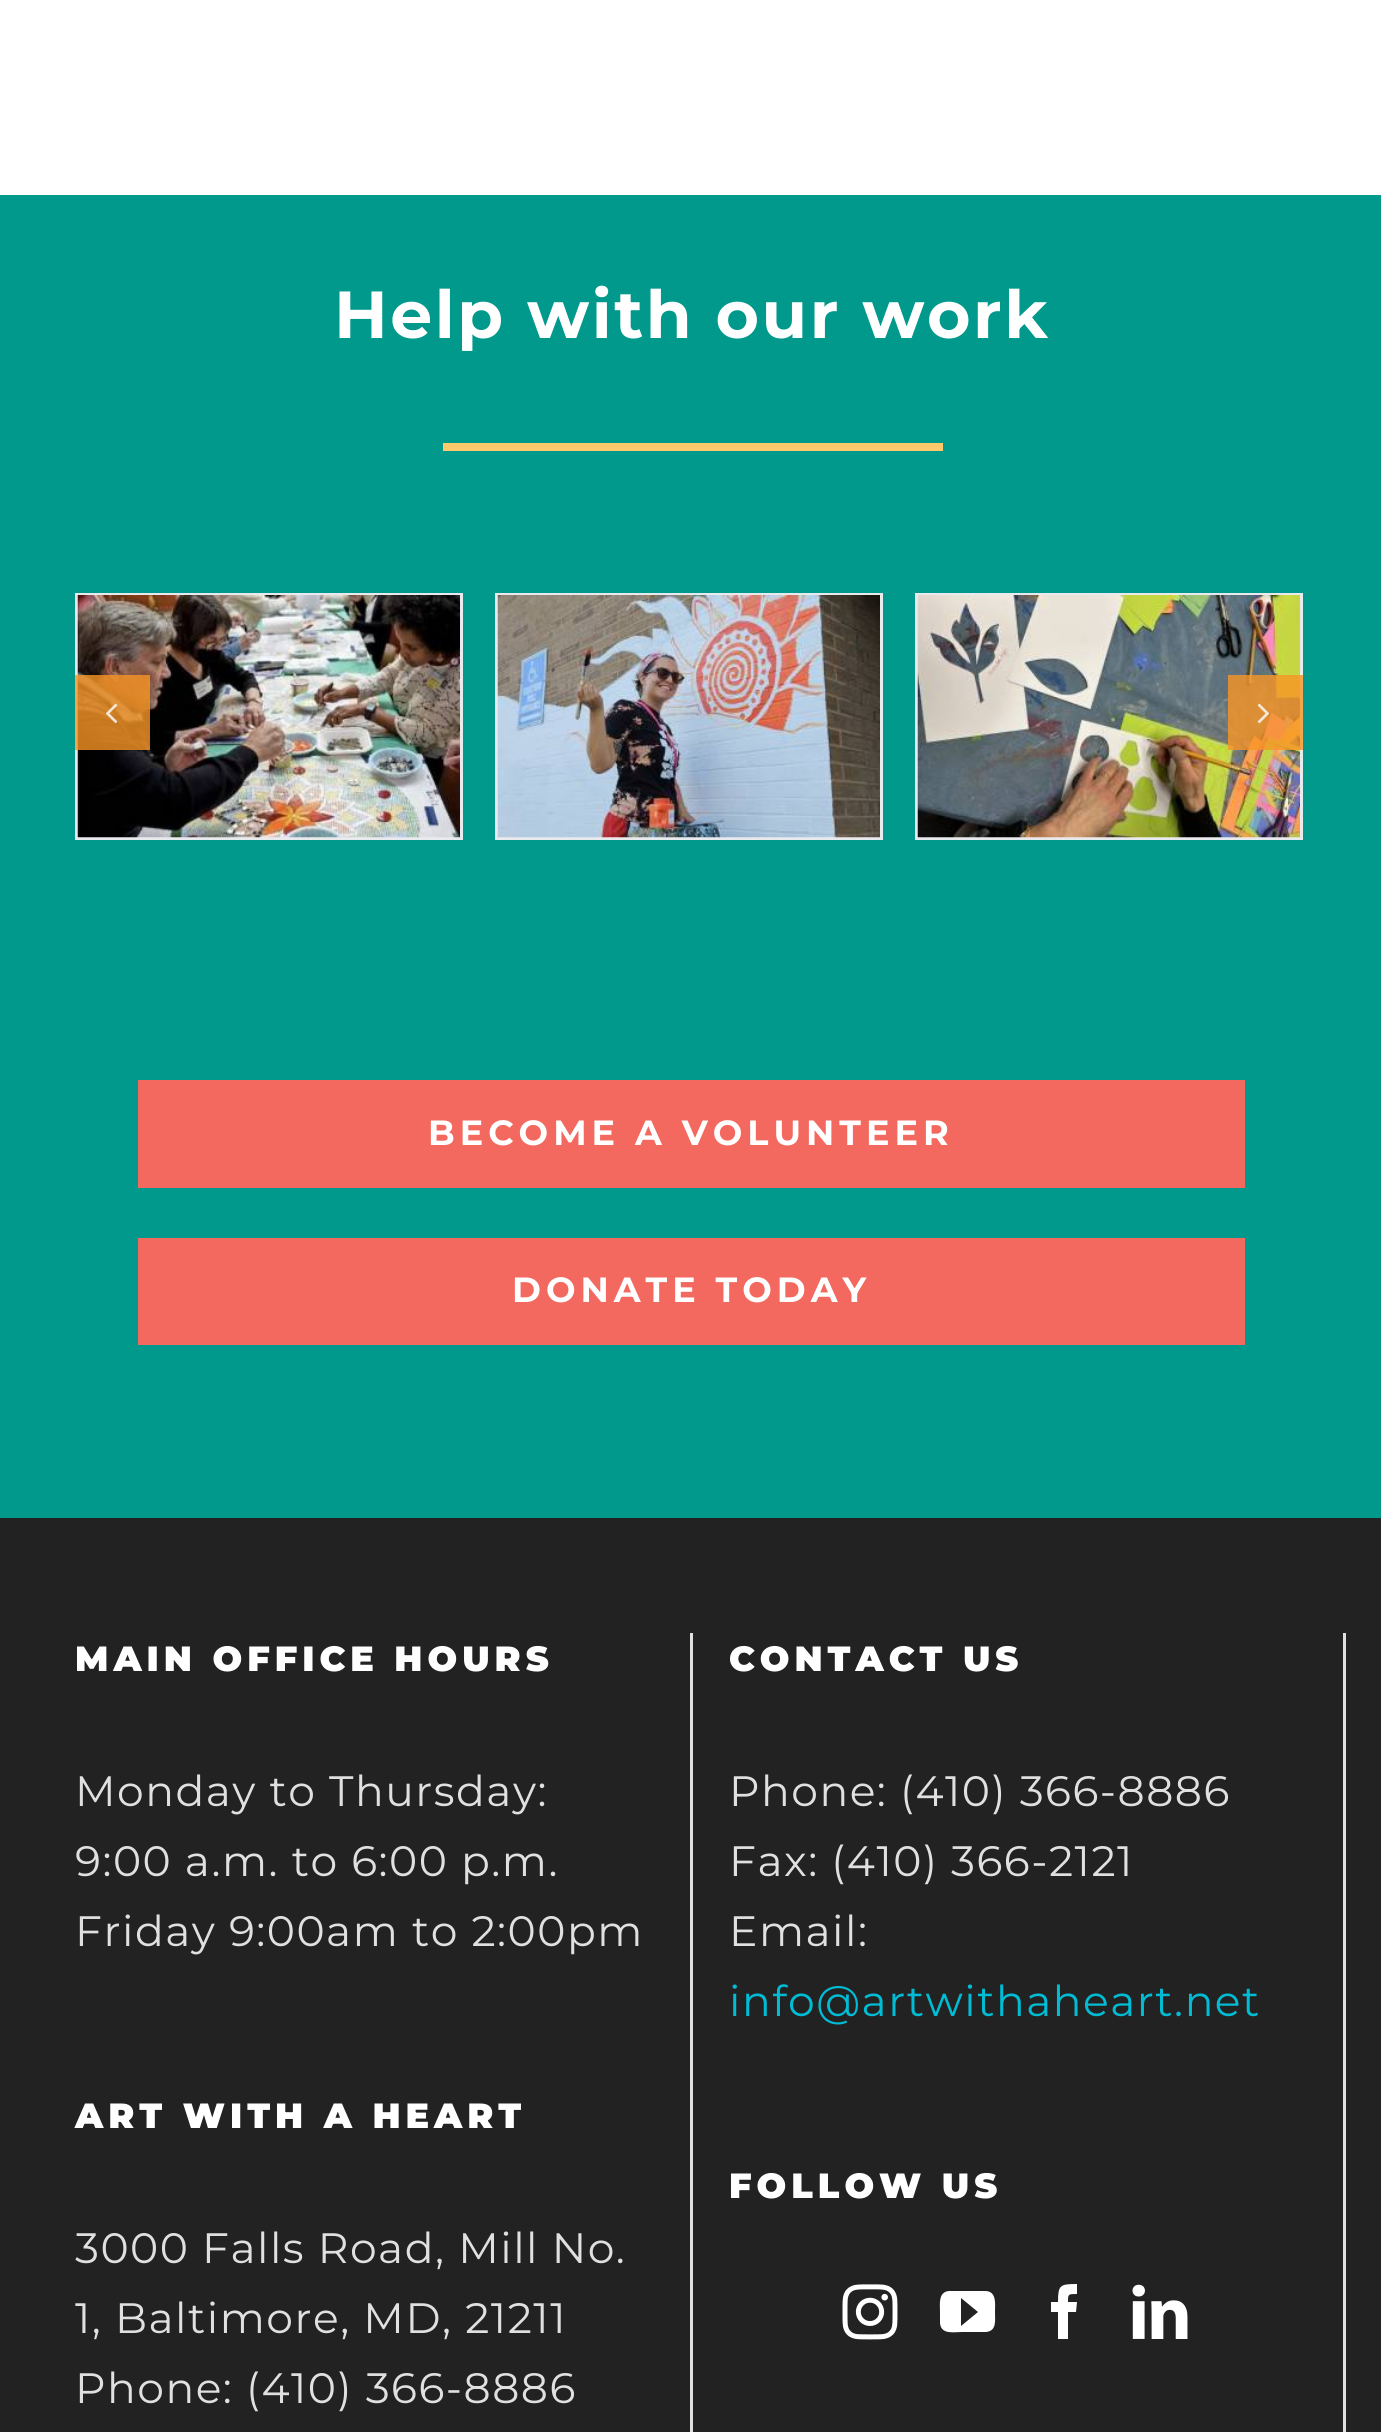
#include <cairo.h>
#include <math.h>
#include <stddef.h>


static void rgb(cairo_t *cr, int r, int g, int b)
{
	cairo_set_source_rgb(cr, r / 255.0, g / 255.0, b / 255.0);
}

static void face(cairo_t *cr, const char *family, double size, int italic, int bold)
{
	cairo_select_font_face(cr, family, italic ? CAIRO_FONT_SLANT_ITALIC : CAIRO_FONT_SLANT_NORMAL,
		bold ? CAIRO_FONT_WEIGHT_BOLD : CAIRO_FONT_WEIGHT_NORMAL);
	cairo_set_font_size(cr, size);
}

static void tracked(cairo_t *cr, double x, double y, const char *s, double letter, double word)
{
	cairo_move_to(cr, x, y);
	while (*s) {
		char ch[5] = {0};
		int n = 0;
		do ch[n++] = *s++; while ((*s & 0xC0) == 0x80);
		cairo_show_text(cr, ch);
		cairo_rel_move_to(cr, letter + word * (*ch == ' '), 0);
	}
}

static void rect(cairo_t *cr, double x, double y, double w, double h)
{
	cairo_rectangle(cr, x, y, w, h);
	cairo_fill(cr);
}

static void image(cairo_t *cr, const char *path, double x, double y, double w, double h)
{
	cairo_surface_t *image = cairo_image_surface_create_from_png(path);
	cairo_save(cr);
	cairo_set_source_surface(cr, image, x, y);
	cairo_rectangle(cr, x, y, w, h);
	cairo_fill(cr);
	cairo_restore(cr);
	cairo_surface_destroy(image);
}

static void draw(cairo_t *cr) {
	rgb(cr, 255, 255, 255);
	cairo_paint(cr);
	rgb(cr, 0, 153, 140);
	rect(cr, 0, 195, 1381, 1323);
	face(cr, "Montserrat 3 Thin", 66.5, 0, 0);
	rgb(cr, 255, 255, 255);
	tracked(cr, 334, 338, "Help with our work", 2.5, 0);
	rgb(cr, 254, 201, 107);
	rect(cr, 443, 443, 500, 8);
	cairo_rectangle(cr, 76.5, 594.5, 385, 244);
	rgb(cr, 233, 234, 238);
	cairo_set_line_width(cr, 3);
	cairo_stroke(cr);
	image(cr, "image0.png", 77, 595, 383, 243);
	cairo_rectangle(cr, 496.5, 594.5, 385, 244);
	cairo_stroke(cr);
	image(cr, "image1.png", 497, 595, 383, 243);
	cairo_rectangle(cr, 916.5, 594.5, 385, 244);
	cairo_stroke(cr);
	image(cr, "image2.png", 917, 595, 383, 243);
	cairo_set_source_rgba(cr, 0.969, 0.584, 0.145, 0.8);
	rect(cr, 75, 675, 75, 75);
	image(cr, "image3.png", 105, 703, 13, 21);
	rect(cr, 1228, 675, 75, 75);
	image(cr, "image4.png", 1257, 703, 13, 21);
	rgb(cr, 244, 105, 95);
	rect(cr, 138, 1080, 1107, 108);
	face(cr, "Montserrat 3 Thin", 35, 0, 0);
	rgb(cr, 255, 255, 255);
	tracked(cr, 428, 1145, "BECOME A VOLUNTEER", 5, 0);
	rgb(cr, 244, 105, 95);
	rect(cr, 138, 1238, 1107, 107);
	rgb(cr, 255, 255, 255);
	tracked(cr, 512, 1302, "DONATE TODAY", 5, 0);
	rgb(cr, 34, 34, 34);
	rect(cr, 0, 1518, 1381, 914);
	rgb(cr, 224, 224, 224);
	rect(cr, 690, 1633, 3, 799);
	face(cr, "Montserrat Thin", 35, 0, 0);
	rgb(cr, 255, 255, 255);
	tracked(cr, 75, 1671, "MAIN OFFICE HOURS", 5, 0);
	face(cr, "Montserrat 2 Thin", 42.5, 0, 0);
	rgb(cr, 224, 224, 224);
	tracked(cr, 75, 1806, "Monday to Thursday:", 1.5, 0);
	tracked(cr, 75, 1876, "9:00 a.m. to 6:00 p.m.", 1.5, 0);
	tracked(cr, 75, 1946, "Friday 9:00am to 2:00pm", 1.5, 0);
	face(cr, "Montserrat Thin", 35, 0, 0);
	rgb(cr, 255, 255, 255);
	tracked(cr, 75, 2128, "ART WITH A HEART", 5, 0);
	face(cr, "Montserrat 2 Thin", 42.5, 0, 0);
	rgb(cr, 224, 224, 224);
	tracked(cr, 75, 2263, "3000 Falls Road, Mill No.", 1.5, 0);
	tracked(cr, 75, 2333, "1, Baltimore, MD, 21211", 1.5, 0);
	tracked(cr, 75, 2403, "Phone: (410) 366-8886", 1.5, 0);
	rect(cr, 1343, 1633, 3, 799);
	face(cr, "Montserrat Thin", 35, 0, 0);
	rgb(cr, 255, 255, 255);
	tracked(cr, 729, 1671, "CONTACT US", 5, 0);
	face(cr, "Montserrat 2 Thin", 42.5, 0, 0);
	rgb(cr, 224, 224, 224);
	tracked(cr, 729, 1806, "Phone: (410) 366-8886", 1.5, 0);
	tracked(cr, 729, 1876, "Fax: (410) 366-2121", 1.5, 0);
	tracked(cr, 729, 1946, "Email:", 1.5, 0);
	rgb(cr, 0, 188, 212);
	tracked(cr, 729, 2016, "info@artwithaheart.net", 1.5, 0);
	face(cr, "Montserrat Thin", 35, 0, 0);
	rgb(cr, 255, 255, 255);
	tracked(cr, 729, 2198, "FOLLOW US", 5, 0);
	image(cr, "image5.png", 842, 2284, 56, 56);
	cairo_new_path(cr);
	cairo_move_to(cr, 985, 2291);
	cairo_line_to(cr, 949, 2291);
	cairo_curve_to(cr, 938, 2292, 940, 2304, 940, 2312);
	cairo_line_to(cr, 940, 2323);
	cairo_curve_to(cr, 941, 2335, 954, 2332, 962, 2332);
	cairo_line_to(cr, 986, 2332);
	cairo_curve_to(cr, 997, 2331, 995, 2320, 995, 2312);
	cairo_curve_to(cr, 995, 2304, 997, 2291, 985, 2291);
	cairo_close_path(cr);
	cairo_move_to(cr, 961, 2326);
	cairo_line_to(cr, 961, 2298);
	cairo_line_to(cr, 978, 2312);
	cairo_close_path(cr);
	cairo_fill(cr);
	cairo_new_path(cr);
	cairo_move_to(cr, 1068, 2339);
	cairo_line_to(cr, 1058, 2339);
	cairo_line_to(cr, 1058, 2312);
	cairo_line_to(cr, 1051, 2312);
	cairo_line_to(cr, 1051, 2302);
	cairo_line_to(cr, 1058, 2302);
	cairo_curve_to(cr, 1058, 2285, 1060, 2284, 1077, 2284);
	cairo_line_to(cr, 1077, 2294);
	cairo_curve_to(cr, 1068, 2294, 1068, 2294, 1068, 2302);
	cairo_line_to(cr, 1077, 2302);
	cairo_line_to(cr, 1076, 2312);
	cairo_line_to(cr, 1068, 2312);
	cairo_close_path(cr);
	cairo_fill(cr);
	image(cr, "image6.png", 1132, 2284, 56, 55);
}

int main(void) {
	cairo_surface_t *surface = cairo_image_surface_create(CAIRO_FORMAT_RGB24, 1381, 2432);
	cairo_t *cr = cairo_create(surface);
	cairo_font_options_t *options = cairo_font_options_create();
	cairo_font_options_set_hint_metrics(options, CAIRO_HINT_METRICS_OFF);
	cairo_font_options_set_hint_style(options, CAIRO_HINT_STYLE_NONE);
	cairo_set_font_options(cr, options);
	cairo_set_miter_limit(cr, 4);
	draw(cr);
	cairo_surface_write_to_png(surface, "render.png");
	cairo_font_options_destroy(options);
	cairo_destroy(cr);
	cairo_surface_destroy(surface);
	return 0;
}
